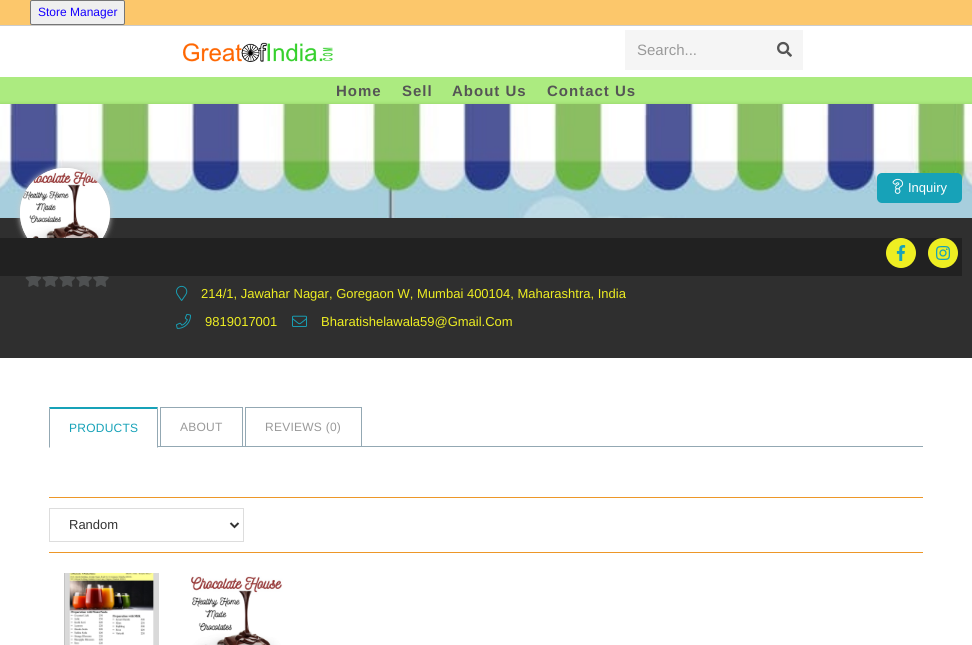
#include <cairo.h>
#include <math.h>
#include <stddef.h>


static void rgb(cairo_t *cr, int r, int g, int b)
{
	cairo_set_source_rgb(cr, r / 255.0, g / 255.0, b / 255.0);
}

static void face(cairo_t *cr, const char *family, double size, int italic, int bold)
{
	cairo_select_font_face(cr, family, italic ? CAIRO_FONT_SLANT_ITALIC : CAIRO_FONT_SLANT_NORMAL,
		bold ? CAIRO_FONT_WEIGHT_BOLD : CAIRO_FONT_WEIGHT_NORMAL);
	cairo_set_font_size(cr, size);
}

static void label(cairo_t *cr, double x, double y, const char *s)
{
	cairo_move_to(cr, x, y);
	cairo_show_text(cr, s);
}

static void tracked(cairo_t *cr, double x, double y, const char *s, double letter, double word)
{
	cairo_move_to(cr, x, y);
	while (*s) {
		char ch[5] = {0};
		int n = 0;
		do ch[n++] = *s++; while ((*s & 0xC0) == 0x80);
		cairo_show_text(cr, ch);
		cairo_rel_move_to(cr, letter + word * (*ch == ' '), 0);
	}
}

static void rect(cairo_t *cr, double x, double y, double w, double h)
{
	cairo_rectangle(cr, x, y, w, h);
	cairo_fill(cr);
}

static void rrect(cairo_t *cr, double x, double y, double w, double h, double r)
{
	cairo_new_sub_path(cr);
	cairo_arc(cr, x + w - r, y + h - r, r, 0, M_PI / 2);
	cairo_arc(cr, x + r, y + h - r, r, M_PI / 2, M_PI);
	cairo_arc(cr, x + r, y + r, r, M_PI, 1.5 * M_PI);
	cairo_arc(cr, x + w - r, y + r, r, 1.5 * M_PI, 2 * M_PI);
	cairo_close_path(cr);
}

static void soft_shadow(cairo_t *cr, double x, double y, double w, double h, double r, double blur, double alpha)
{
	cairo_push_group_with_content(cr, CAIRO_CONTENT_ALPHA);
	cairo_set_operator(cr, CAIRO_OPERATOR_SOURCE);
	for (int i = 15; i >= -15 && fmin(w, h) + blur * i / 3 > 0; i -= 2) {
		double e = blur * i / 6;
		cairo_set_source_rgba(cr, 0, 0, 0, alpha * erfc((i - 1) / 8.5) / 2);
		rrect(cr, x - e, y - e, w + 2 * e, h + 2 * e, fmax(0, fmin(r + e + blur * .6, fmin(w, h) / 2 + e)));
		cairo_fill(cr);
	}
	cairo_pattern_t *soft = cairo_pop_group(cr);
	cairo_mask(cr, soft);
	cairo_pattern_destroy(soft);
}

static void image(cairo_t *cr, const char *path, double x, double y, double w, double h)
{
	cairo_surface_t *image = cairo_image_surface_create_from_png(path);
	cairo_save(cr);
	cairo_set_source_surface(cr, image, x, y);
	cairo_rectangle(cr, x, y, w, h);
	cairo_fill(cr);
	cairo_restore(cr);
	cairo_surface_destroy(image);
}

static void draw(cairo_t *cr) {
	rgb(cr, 255, 255, 255);
	cairo_paint(cr);
	rgb(cr, 172, 235, 128);
	rect(cr, 0, 77, 972, 27);
	rgb(cr, 252, 199, 107);
	rect(cr, 0, 0, 972, 25);
	rgb(cr, 204, 204, 204);
	rect(cr, 0, 25, 972, 1);
	rgb(cr, 239, 239, 239);
	rrect(cr, 30.5, 0.5, 94, 24, 1.5);
	cairo_fill_preserve(cr);
	rgb(cr, 118, 118, 118);
	cairo_set_line_width(cr, 1);
	cairo_stroke(cr);
	face(cr, "Liberation Sans", 12, 0, 0);
	rgb(cr, 21, 0, 255);
	label(cr, 38, 16, "Store Manager");
	image(cr, "image0.png", 183, 42, 150, 20);
	rgb(cr, 245, 245, 245);
	rect(cr, 625, 30, 178, 40);
	face(cr, "Liberation Sans", 15, 0, 0);
	rgb(cr, 153, 153, 153);
	label(cr, 637, 55, "Search...");
	image(cr, "image1.png", 777, 41, 15, 16);
	face(cr, "Liberation Sans", 15, 0, 1);
	rgb(cr, 85, 85, 85);
	tracked(cr, 336, 96, "Home", 1, 0);
	tracked(cr, 402, 96, "Sell", 1, 0);
	tracked(cr, 452, 96, "About Us", 1, 0);
	tracked(cr, 547, 96, "Contact Us", 1, 0);
	cairo_save(cr);
	cairo_rectangle(cr, 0, 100, 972, 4);
	cairo_clip(cr);
	rgb(cr, 147, 209, 102);
	soft_shadow(cr, 0, 104, 972, 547, 0, 2, 1);
	cairo_restore(cr);
	image(cr, "image2.png", 0, 104, 972, 114);
	rgb(cr, 47, 47, 47);
	rect(cr, 0, 218, 972, 140);
	rgb(cr, 23, 162, 184);
	rrect(cr, 877, 173, 85, 30, 5);
	cairo_fill(cr);
	image(cr, "image3.png", 892, 178, 12, 16);
	face(cr, "Liberation Sans", 13, 0, 0);
	rgb(cr, 255, 255, 255);
	label(cr, 908, 192, "Inquiry");
	rgb(cr, 204, 204, 204);
	soft_shadow(cr, 20, 168, 90, 90, 45, 3, 1);
	rgb(cr, 255, 255, 255);
	cairo_arc(cr, 65, 213, 45, 0, 2 * M_PI);
	cairo_fill(cr);
	rgb(cr, 33, 33, 33);
	rect(cr, 0, 238, 962, 38);
	rgb(cr, 238, 238, 34);
	cairo_arc(cr, 901, 253, 15, 0, 2 * M_PI);
	cairo_fill(cr);
	image(cr, "image4.png", 896, 245, 10, 16);
	cairo_arc(cr, 943, 253, 15, 0, 2 * M_PI);
	cairo_fill(cr);
	image(cr, "image5.png", 936, 246, 14, 14);
	image(cr, "image6.png", 20, 168, 90, 70);
	image(cr, "image7.png", 25, 276, 84, 11);
	image(cr, "image8.png", 176, 285, 12, 16);
	label(cr, 201, 298, "214/1, Jawahar Nagar, Goregaon W, Mumbai 400104, Maharashtra, India");
	image(cr, "image9.png", 176, 313, 15, 16);
	label(cr, 205, 326, "9819017001");
	image(cr, "image10.png", 292, 315, 15, 12);
	label(cr, 321, 326, "Bharatishelawala59@Gmail.Com");
	rgb(cr, 147, 168, 179);
	rect(cr, 158, 446, 765, 1);
	rgb(cr, 23, 162, 184);
	cairo_new_path(cr);
	cairo_move_to(cr, 49, 407);
	cairo_line_to(cr, 158, 407);
	cairo_line_to(cr, 157, 409);
	cairo_line_to(cr, 50, 409);
	cairo_close_path(cr);
	cairo_fill(cr);
	rgb(cr, 147, 168, 179);
	cairo_new_path(cr);
	cairo_move_to(cr, 158, 407);
	cairo_line_to(cr, 158, 448);
	cairo_line_to(cr, 157, 447);
	cairo_line_to(cr, 157, 409);
	cairo_close_path(cr);
	cairo_fill(cr);
	cairo_new_path(cr);
	cairo_move_to(cr, 49, 448);
	cairo_line_to(cr, 49, 407);
	cairo_line_to(cr, 50, 409);
	cairo_line_to(cr, 50, 447);
	cairo_close_path(cr);
	cairo_fill(cr);
	face(cr, "Liberation Sans", 12, 0, 0);
	rgb(cr, 23, 162, 184);
	tracked(cr, 69, 432, "PRODUCTS", 0.25, 0);
	rgb(cr, 147, 168, 179);
	rect(cr, 160, 407, 83, 1);
	cairo_new_path(cr);
	cairo_move_to(cr, 243, 407);
	cairo_line_to(cr, 243, 447);
	cairo_line_to(cr, 242, 446);
	cairo_line_to(cr, 242, 408);
	cairo_close_path(cr);
	cairo_fill(cr);
	cairo_new_path(cr);
	cairo_move_to(cr, 160, 447);
	cairo_line_to(cr, 160, 407);
	cairo_line_to(cr, 161, 408);
	cairo_line_to(cr, 161, 446);
	cairo_close_path(cr);
	cairo_fill(cr);
	rgb(cr, 153, 153, 153);
	tracked(cr, 180, 431, "ABOUT", 0.25, 0);
	rgb(cr, 147, 168, 179);
	rect(cr, 245, 407, 117, 1);
	cairo_new_path(cr);
	cairo_move_to(cr, 362, 407);
	cairo_line_to(cr, 362, 447);
	cairo_line_to(cr, 361, 446);
	cairo_line_to(cr, 361, 408);
	cairo_close_path(cr);
	cairo_fill(cr);
	cairo_new_path(cr);
	cairo_move_to(cr, 245, 447);
	cairo_line_to(cr, 245, 407);
	cairo_line_to(cr, 246, 408);
	cairo_line_to(cr, 246, 446);
	cairo_close_path(cr);
	cairo_fill(cr);
	rgb(cr, 153, 153, 153);
	tracked(cr, 265, 431, "REVIEWS (0)", 0.25, 0);
	rgb(cr, 237, 151, 40);
	rect(cr, 49, 497, 874, 1);
	rect(cr, 49, 552, 874, 1);
	cairo_rectangle(cr, 49.5, 508.5, 194, 33);
	rgb(cr, 221, 221, 221);
	cairo_stroke(cr);
	cairo_new_path(cr);
	cairo_move_to(cr, 230.5, 523);
	cairo_line_to(cr, 234.5, 527);
	cairo_line_to(cr, 238.5, 523);
	rgb(cr, 51, 51, 51);
	cairo_set_line_width(cr, 2);
	cairo_stroke(cr);
	face(cr, "Liberation Sans", 13, 0, 0);
	label(cr, 69, 529, "Random");
	image(cr, "image11.png", 64, 573, 95, 72);
	image(cr, "image12.png", 190, 576, 93, 69);
}

int main(void) {
	cairo_surface_t *surface = cairo_image_surface_create(CAIRO_FORMAT_RGB24, 972, 645);
	cairo_t *cr = cairo_create(surface);
	cairo_font_options_t *options = cairo_font_options_create();
	cairo_font_options_set_hint_metrics(options, CAIRO_HINT_METRICS_OFF);
	cairo_font_options_set_hint_style(options, CAIRO_HINT_STYLE_NONE);
	cairo_set_font_options(cr, options);
	cairo_set_miter_limit(cr, 4);
	draw(cr);
	cairo_surface_write_to_png(surface, "render.png");
	cairo_font_options_destroy(options);
	cairo_destroy(cr);
	cairo_surface_destroy(surface);
	return 0;
}
